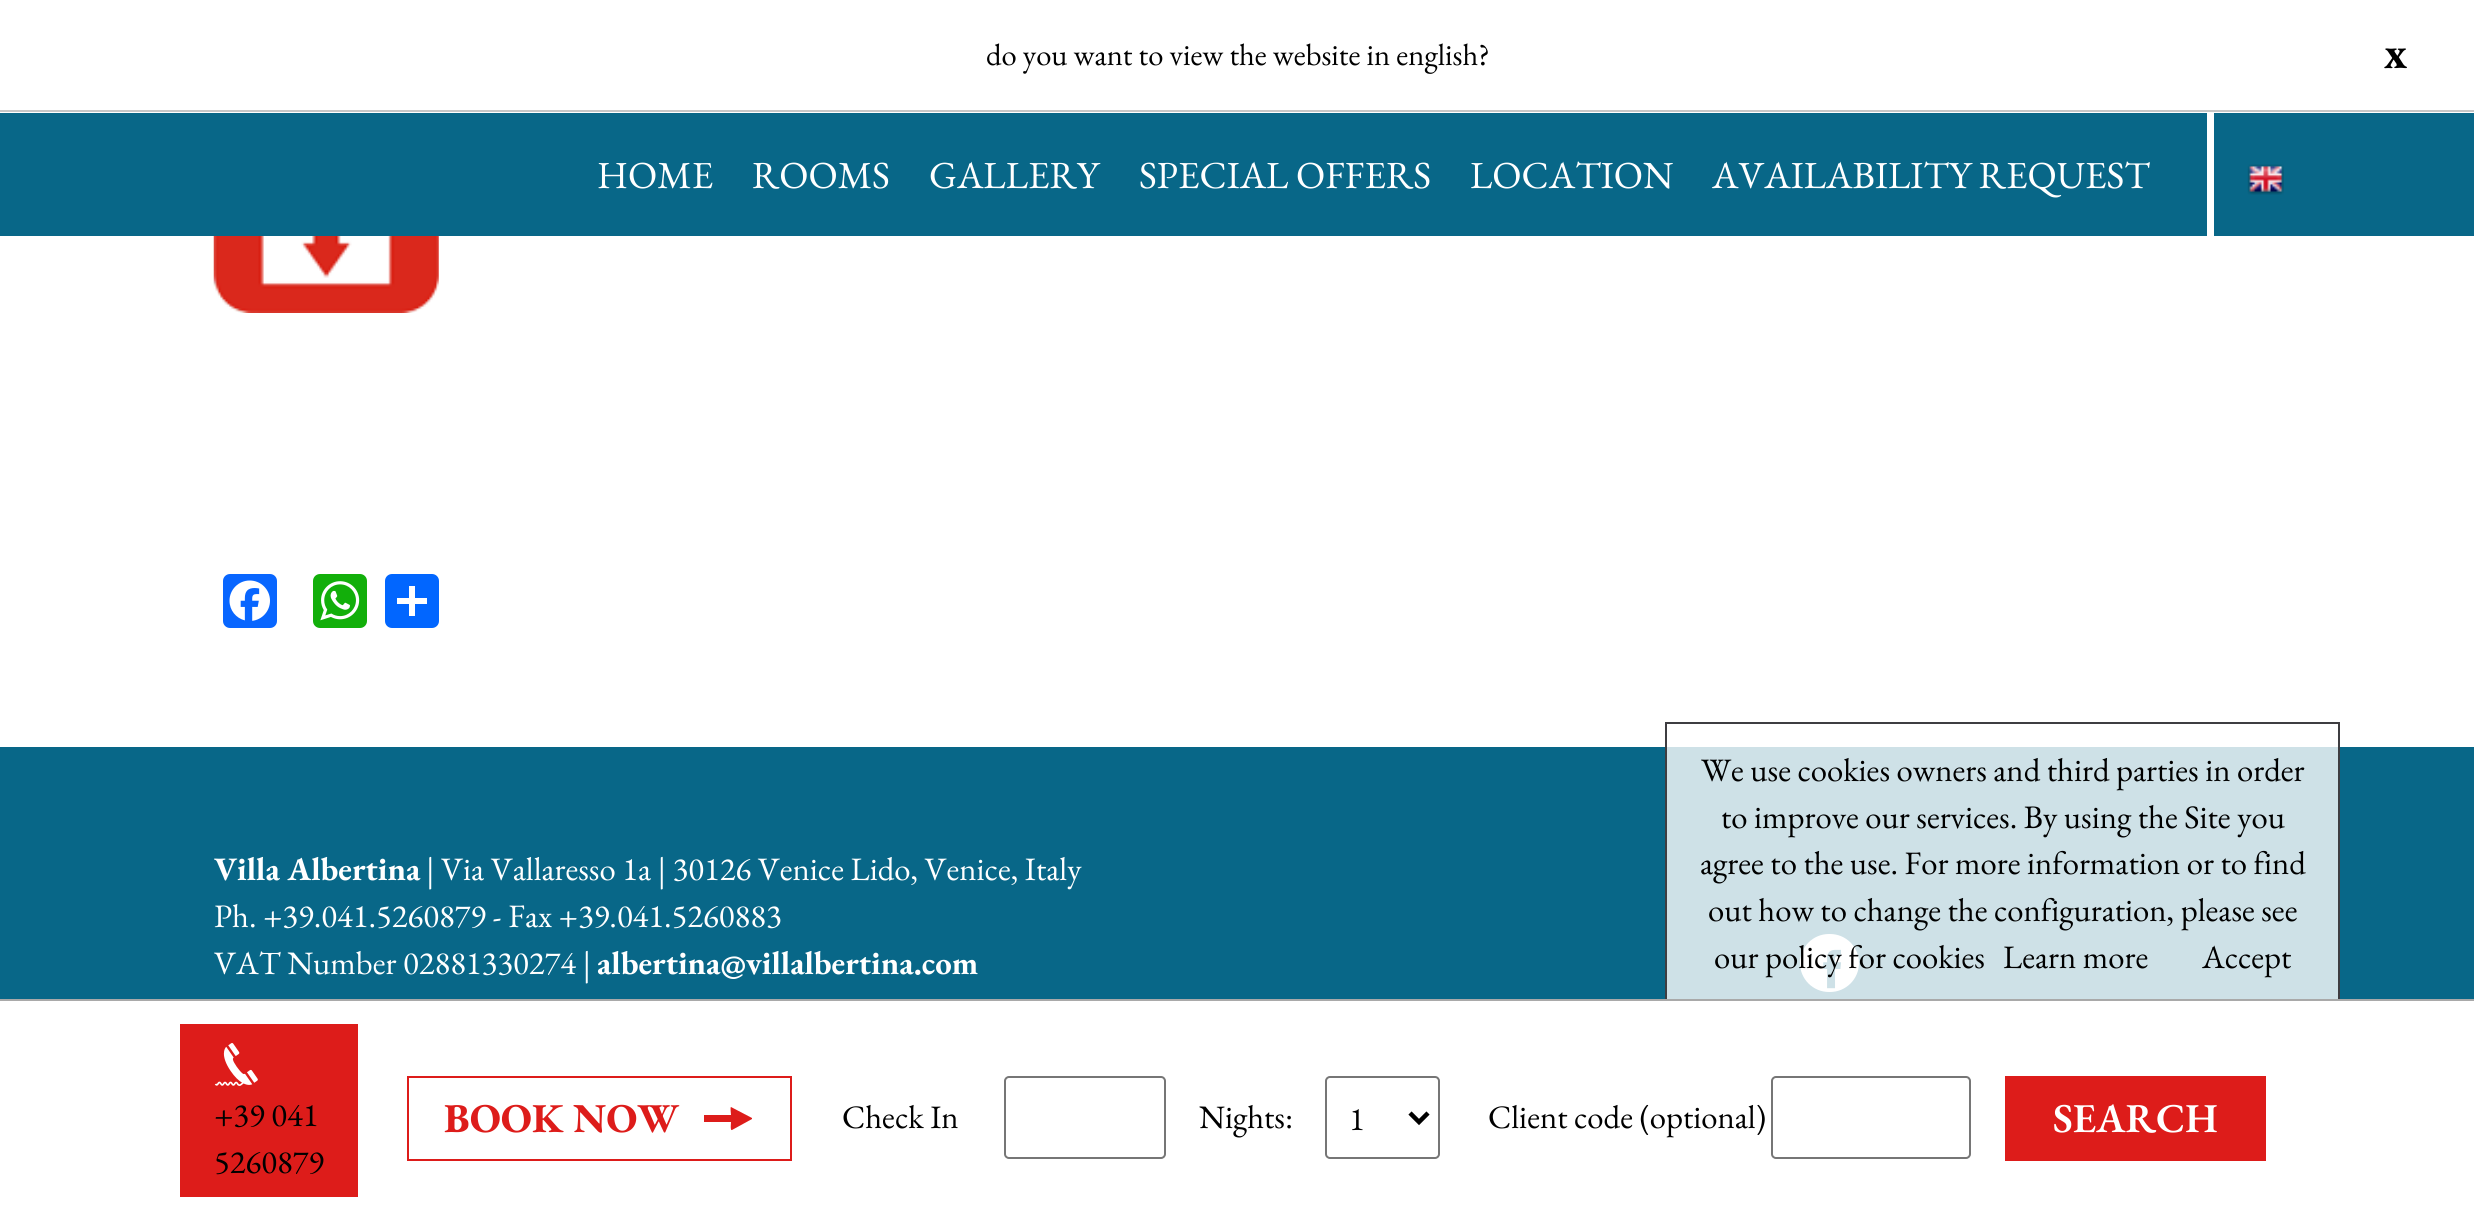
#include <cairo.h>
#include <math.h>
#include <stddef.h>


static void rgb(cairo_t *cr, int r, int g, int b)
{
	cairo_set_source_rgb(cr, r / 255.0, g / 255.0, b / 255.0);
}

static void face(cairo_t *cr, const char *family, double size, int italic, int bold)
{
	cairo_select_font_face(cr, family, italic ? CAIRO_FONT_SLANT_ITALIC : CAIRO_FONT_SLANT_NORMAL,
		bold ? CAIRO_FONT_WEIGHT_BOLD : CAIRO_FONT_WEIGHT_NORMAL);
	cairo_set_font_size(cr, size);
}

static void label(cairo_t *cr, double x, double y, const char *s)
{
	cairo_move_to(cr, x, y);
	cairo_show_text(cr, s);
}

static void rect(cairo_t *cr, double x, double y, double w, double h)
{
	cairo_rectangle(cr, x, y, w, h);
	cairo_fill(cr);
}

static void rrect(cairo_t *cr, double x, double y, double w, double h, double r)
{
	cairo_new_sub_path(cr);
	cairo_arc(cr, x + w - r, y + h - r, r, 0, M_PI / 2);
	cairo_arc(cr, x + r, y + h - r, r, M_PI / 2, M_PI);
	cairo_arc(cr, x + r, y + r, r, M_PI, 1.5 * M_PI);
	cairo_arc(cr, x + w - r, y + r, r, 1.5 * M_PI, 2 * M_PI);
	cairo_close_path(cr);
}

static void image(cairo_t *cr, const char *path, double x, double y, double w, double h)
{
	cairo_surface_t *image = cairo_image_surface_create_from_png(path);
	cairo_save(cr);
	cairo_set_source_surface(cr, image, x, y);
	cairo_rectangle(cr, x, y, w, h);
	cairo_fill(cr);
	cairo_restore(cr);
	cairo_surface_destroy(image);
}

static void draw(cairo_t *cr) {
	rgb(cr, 255, 255, 255);
	cairo_paint(cr);
	rgb(cr, 199, 199, 199);
	rect(cr, 0, 110, 2474, 2);
	face(cr, "EB Garamond", 30.6, 0, 0);
	rgb(cr, 0, 0, 0);
	label(cr, 986, 65, "do you want to view the website in english?");
	face(cr, "EB Garamond", 46, 0, 1);
	label(cr, 2384, 68, "x");
	rgb(cr, 8, 103, 136);
	rect(cr, 0, 113, 2474, 123);
	face(cr, "EB Garamond", 38.25, 0, 0);
	rgb(cr, 255, 255, 255);
	label(cr, 597, 188, "HOME");
	label(cr, 752, 188, "ROOMS");
	label(cr, 929, 188, "GALLERY");
	label(cr, 1139, 188, "SPECIAL OFFERS");
	label(cr, 1470, 188, "LOCATION");
	label(cr, 1712, 188, "AVAILABILITY REQUEST");
	rect(cr, 2207, 113, 7, 123);
	image(cr, "image0.png", 2247, 164, 37, 31);
	image(cr, "image1.png", 213, 236, 226, 77);
	rgb(cr, 8, 102, 255);
	rrect(cr, 223, 574, 54, 54, 7);
	cairo_fill(cr);
	image(cr, "image2.png", 229, 580, 41, 41);
	rgb(cr, 18, 175, 10);
	rrect(cr, 313, 574, 54, 54, 7);
	cairo_fill(cr);
	image(cr, "image3.png", 320, 581, 40, 40);
	rgb(cr, 1, 102, 255);
	rrect(cr, 385, 574, 54, 54, 7);
	cairo_fill(cr);
	rgb(cr, 255, 255, 255);
	rect(cr, 409, 586, 6, 30);
	rect(cr, 397, 598, 30, 6);
	rgb(cr, 8, 103, 136);
	rect(cr, 0, 747, 2474, 252);
	rgb(cr, 206, 225, 231);
	rect(cr, 1667, 747, 671, 252);
	face(cr, "EB Garamond", 32.75, 0, 1);
	rgb(cr, 255, 255, 255);
	label(cr, 214, 880, "Villa Albertina");
	face(cr, "EB Garamond", 32.75, 0, 0);
	label(cr, 426, 880, "| Via Vallaresso 1a | 30126 Venice Lido, Venice, Italy");
	label(cr, 214, 927, "Ph. +39.041.5260879 - Fax +39.041.5260883");
	label(cr, 214, 974, "VAT Number 02881330274 |");
	face(cr, "EB Garamond", 32.75, 0, 1);
	label(cr, 597, 974, "albertina@villalbertina.com");
	rrect(cr, 1800, 934, 59, 58, 29);
	cairo_fill(cr);
	image(cr, "image4.png", 1823, 949, 19, 40);
	cairo_rectangle(cr, 1666, 723, 673, 282);
	rgb(cr, 62, 61, 65);
	cairo_stroke(cr);
	face(cr, "EB Garamond", 32.75, 0, 0);
	rgb(cr, 0, 0, 0);
	label(cr, 1701, 781, "We use cookies owners and third parties in order");
	label(cr, 1721, 828, "to improve our services. By using the Site you");
	label(cr, 1700, 874, "agree to the use. For more information or to find");
	label(cr, 1708, 921, "out how to change the configuration, please see");
	label(cr, 1714, 968, "our policy for cookies");
	label(cr, 2003, 968, "Learn more");
	label(cr, 2202, 968, "Accept");
	rgb(cr, 255, 255, 255);
	rect(cr, 1665, 1001, 675, 5);
	rgb(cr, 169, 169, 169);
	rect(cr, 0, 999, 2474, 2);
	rgb(cr, 221, 28, 26);
	rect(cr, 180, 1024, 178, 173);
	image(cr, "image5.png", 214, 1043, 44, 43);
	rgb(cr, 0, 0, 0);
	label(cr, 214, 1126, "+39 041");
	label(cr, 214, 1173, "5260879");
	cairo_rectangle(cr, 408, 1077, 383, 83);
	rgb(cr, 221, 28, 26);
	cairo_stroke(cr);
	face(cr, "EB Garamond", 41, 0, 1);
	label(cr, 444, 1132, "BOOK NOW");
	cairo_new_path(cr);
	cairo_move_to(cr, 752, 1118);
	cairo_line_to(cr, 731, 1107);
	cairo_curve_to(cr, 730, 1107, 731, 1114, 731, 1115);
	cairo_line_to(cr, 704, 1115);
	cairo_line_to(cr, 704, 1122);
	cairo_line_to(cr, 731, 1122);
	cairo_curve_to(cr, 731, 1123, 730, 1131, 732, 1130);
	cairo_line_to(cr, 752, 1119);
	cairo_close_path(cr);
	cairo_fill(cr);
	face(cr, "EB Garamond", 32.75, 0, 0);
	rgb(cr, 0, 0, 0);
	label(cr, 842, 1128, "Check In");
	rrect(cr, 1005, 1077, 160, 81, 4);
	rgb(cr, 118, 118, 118);
	cairo_stroke(cr);
	rgb(cr, 0, 0, 0);
	label(cr, 1199, 1128, "Nights:");
	rrect(cr, 1326, 1077, 113, 81, 4);
	rgb(cr, 118, 118, 118);
	cairo_stroke(cr);
	cairo_new_path(cr);
	cairo_move_to(cr, 1410, 1113);
	cairo_line_to(cr, 1419, 1122);
	cairo_line_to(cr, 1428, 1113);
	rgb(cr, 0, 0, 0);
	cairo_set_line_width(cr, 4.5);
	cairo_stroke(cr);
	label(cr, 1349, 1130, "1");
	label(cr, 1488, 1128, "Client code (optional)");
	rrect(cr, 1772, 1077, 198, 81, 4);
	rgb(cr, 118, 118, 118);
	cairo_set_line_width(cr, 2);
	cairo_stroke(cr);
	rgb(cr, 221, 28, 26);
	rect(cr, 2005, 1076, 261, 85);
	face(cr, "EB Garamond SemiBold", 41, 0, 0);
	rgb(cr, 255, 255, 255);
	label(cr, 2053, 1132, "SEARCH");
}

int main(void) {
	cairo_surface_t *surface = cairo_image_surface_create(CAIRO_FORMAT_RGB24, 2474, 1207);
	cairo_t *cr = cairo_create(surface);
	cairo_font_options_t *options = cairo_font_options_create();
	cairo_font_options_set_hint_metrics(options, CAIRO_HINT_METRICS_OFF);
	cairo_font_options_set_hint_style(options, CAIRO_HINT_STYLE_NONE);
	cairo_set_font_options(cr, options);
	cairo_set_miter_limit(cr, 4);
	draw(cr);
	cairo_surface_write_to_png(surface, "render.png");
	cairo_font_options_destroy(options);
	cairo_destroy(cr);
	cairo_surface_destroy(surface);
	return 0;
}
